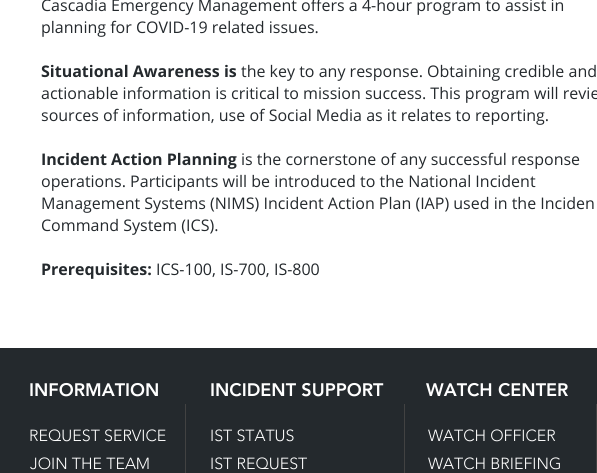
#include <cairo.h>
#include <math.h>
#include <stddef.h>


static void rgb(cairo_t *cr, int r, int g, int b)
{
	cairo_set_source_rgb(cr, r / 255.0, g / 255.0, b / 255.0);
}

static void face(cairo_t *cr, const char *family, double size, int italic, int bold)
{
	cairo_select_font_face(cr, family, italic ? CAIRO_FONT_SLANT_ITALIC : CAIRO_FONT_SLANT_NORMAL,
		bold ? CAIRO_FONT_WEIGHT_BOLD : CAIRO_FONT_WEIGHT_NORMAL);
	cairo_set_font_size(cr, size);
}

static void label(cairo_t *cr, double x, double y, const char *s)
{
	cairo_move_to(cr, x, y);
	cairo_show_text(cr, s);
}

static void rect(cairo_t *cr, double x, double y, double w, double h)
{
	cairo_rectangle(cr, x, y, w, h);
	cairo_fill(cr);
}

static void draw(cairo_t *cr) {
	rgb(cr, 255, 255, 255);
	cairo_paint(cr);
	face(cr, "Open Sans", 16, 0, 0);
	rgb(cr, 36, 41, 45);
	label(cr, 41, 11, "Cascadia Emergency Management offers a 4-hour program to assist in");
	label(cr, 41, 33, "planning for COVID-19 related issues.");
	face(cr, "Open Sans", 16, 0, 1);
	label(cr, 41, 77, "Situational Awareness is");
	face(cr, "Open Sans", 16, 0, 0);
	label(cr, 241, 77, "the key to any response. Obtaining credible and");
	label(cr, 41, 99, "actionable information is critical to mission success. This program will revie");
	label(cr, 41, 121, "sources of information, use of Social Media as it relates to reporting.");
	face(cr, "Open Sans", 16, 0, 1);
	label(cr, 41, 165, "Incident Action Planning");
	face(cr, "Open Sans", 16, 0, 0);
	label(cr, 241, 165, "is the cornerstone of any successful response");
	label(cr, 41, 187, "operations. Participants will be introduced to the National Incident");
	label(cr, 41, 209, "Management Systems (NIMS) Incident Action Plan (IAP) used in the Inciden");
	label(cr, 41, 231, "Command System (ICS).");
	face(cr, "Open Sans", 16, 0, 1);
	label(cr, 41, 275, "Prerequisites:");
	face(cr, "Open Sans", 16, 0, 0);
	label(cr, 156, 275, "ICS-100, IS-700, IS-800");
	rect(cr, 0, 348, 597, 125);
	face(cr, "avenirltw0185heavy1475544 Black", 18, 0, 0);
	rgb(cr, 255, 255, 255);
	label(cr, 29, 396, "INFORMATION");
	label(cr, 210, 396, "INCIDENT SUPPORT");
	label(cr, 426, 396, "WATCH CENTER");
	face(cr, "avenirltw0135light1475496 Light", 16, 0, 0);
	label(cr, 29, 441, "REQUEST SERVICE");
	rgb(cr, 66, 66, 66);
	rect(cr, 185, 404, 1, 69);
	rgb(cr, 255, 255, 255);
	label(cr, 210, 441, "IST STATUS");
	rgb(cr, 66, 66, 66);
	rect(cr, 404, 404, 1, 69);
	rgb(cr, 255, 255, 255);
	label(cr, 428, 441, "WATCH OFFICER");
	rgb(cr, 66, 66, 66);
	rect(cr, 596, 404, 1, 69);
	rgb(cr, 255, 255, 255);
	label(cr, 30, 469, "JOIN THE TEAM");
	label(cr, 210, 469, "IST REQUEST");
	label(cr, 428, 469, "WATCH BRIEFING");
}

int main(void) {
	cairo_surface_t *surface = cairo_image_surface_create(CAIRO_FORMAT_RGB24, 597, 473);
	cairo_t *cr = cairo_create(surface);
	cairo_font_options_t *options = cairo_font_options_create();
	cairo_font_options_set_hint_metrics(options, CAIRO_HINT_METRICS_OFF);
	cairo_font_options_set_hint_style(options, CAIRO_HINT_STYLE_NONE);
	cairo_set_font_options(cr, options);
	cairo_set_miter_limit(cr, 4);
	draw(cr);
	cairo_surface_write_to_png(surface, "render.png");
	cairo_font_options_destroy(options);
	cairo_destroy(cr);
	cairo_surface_destroy(surface);
	return 0;
}
